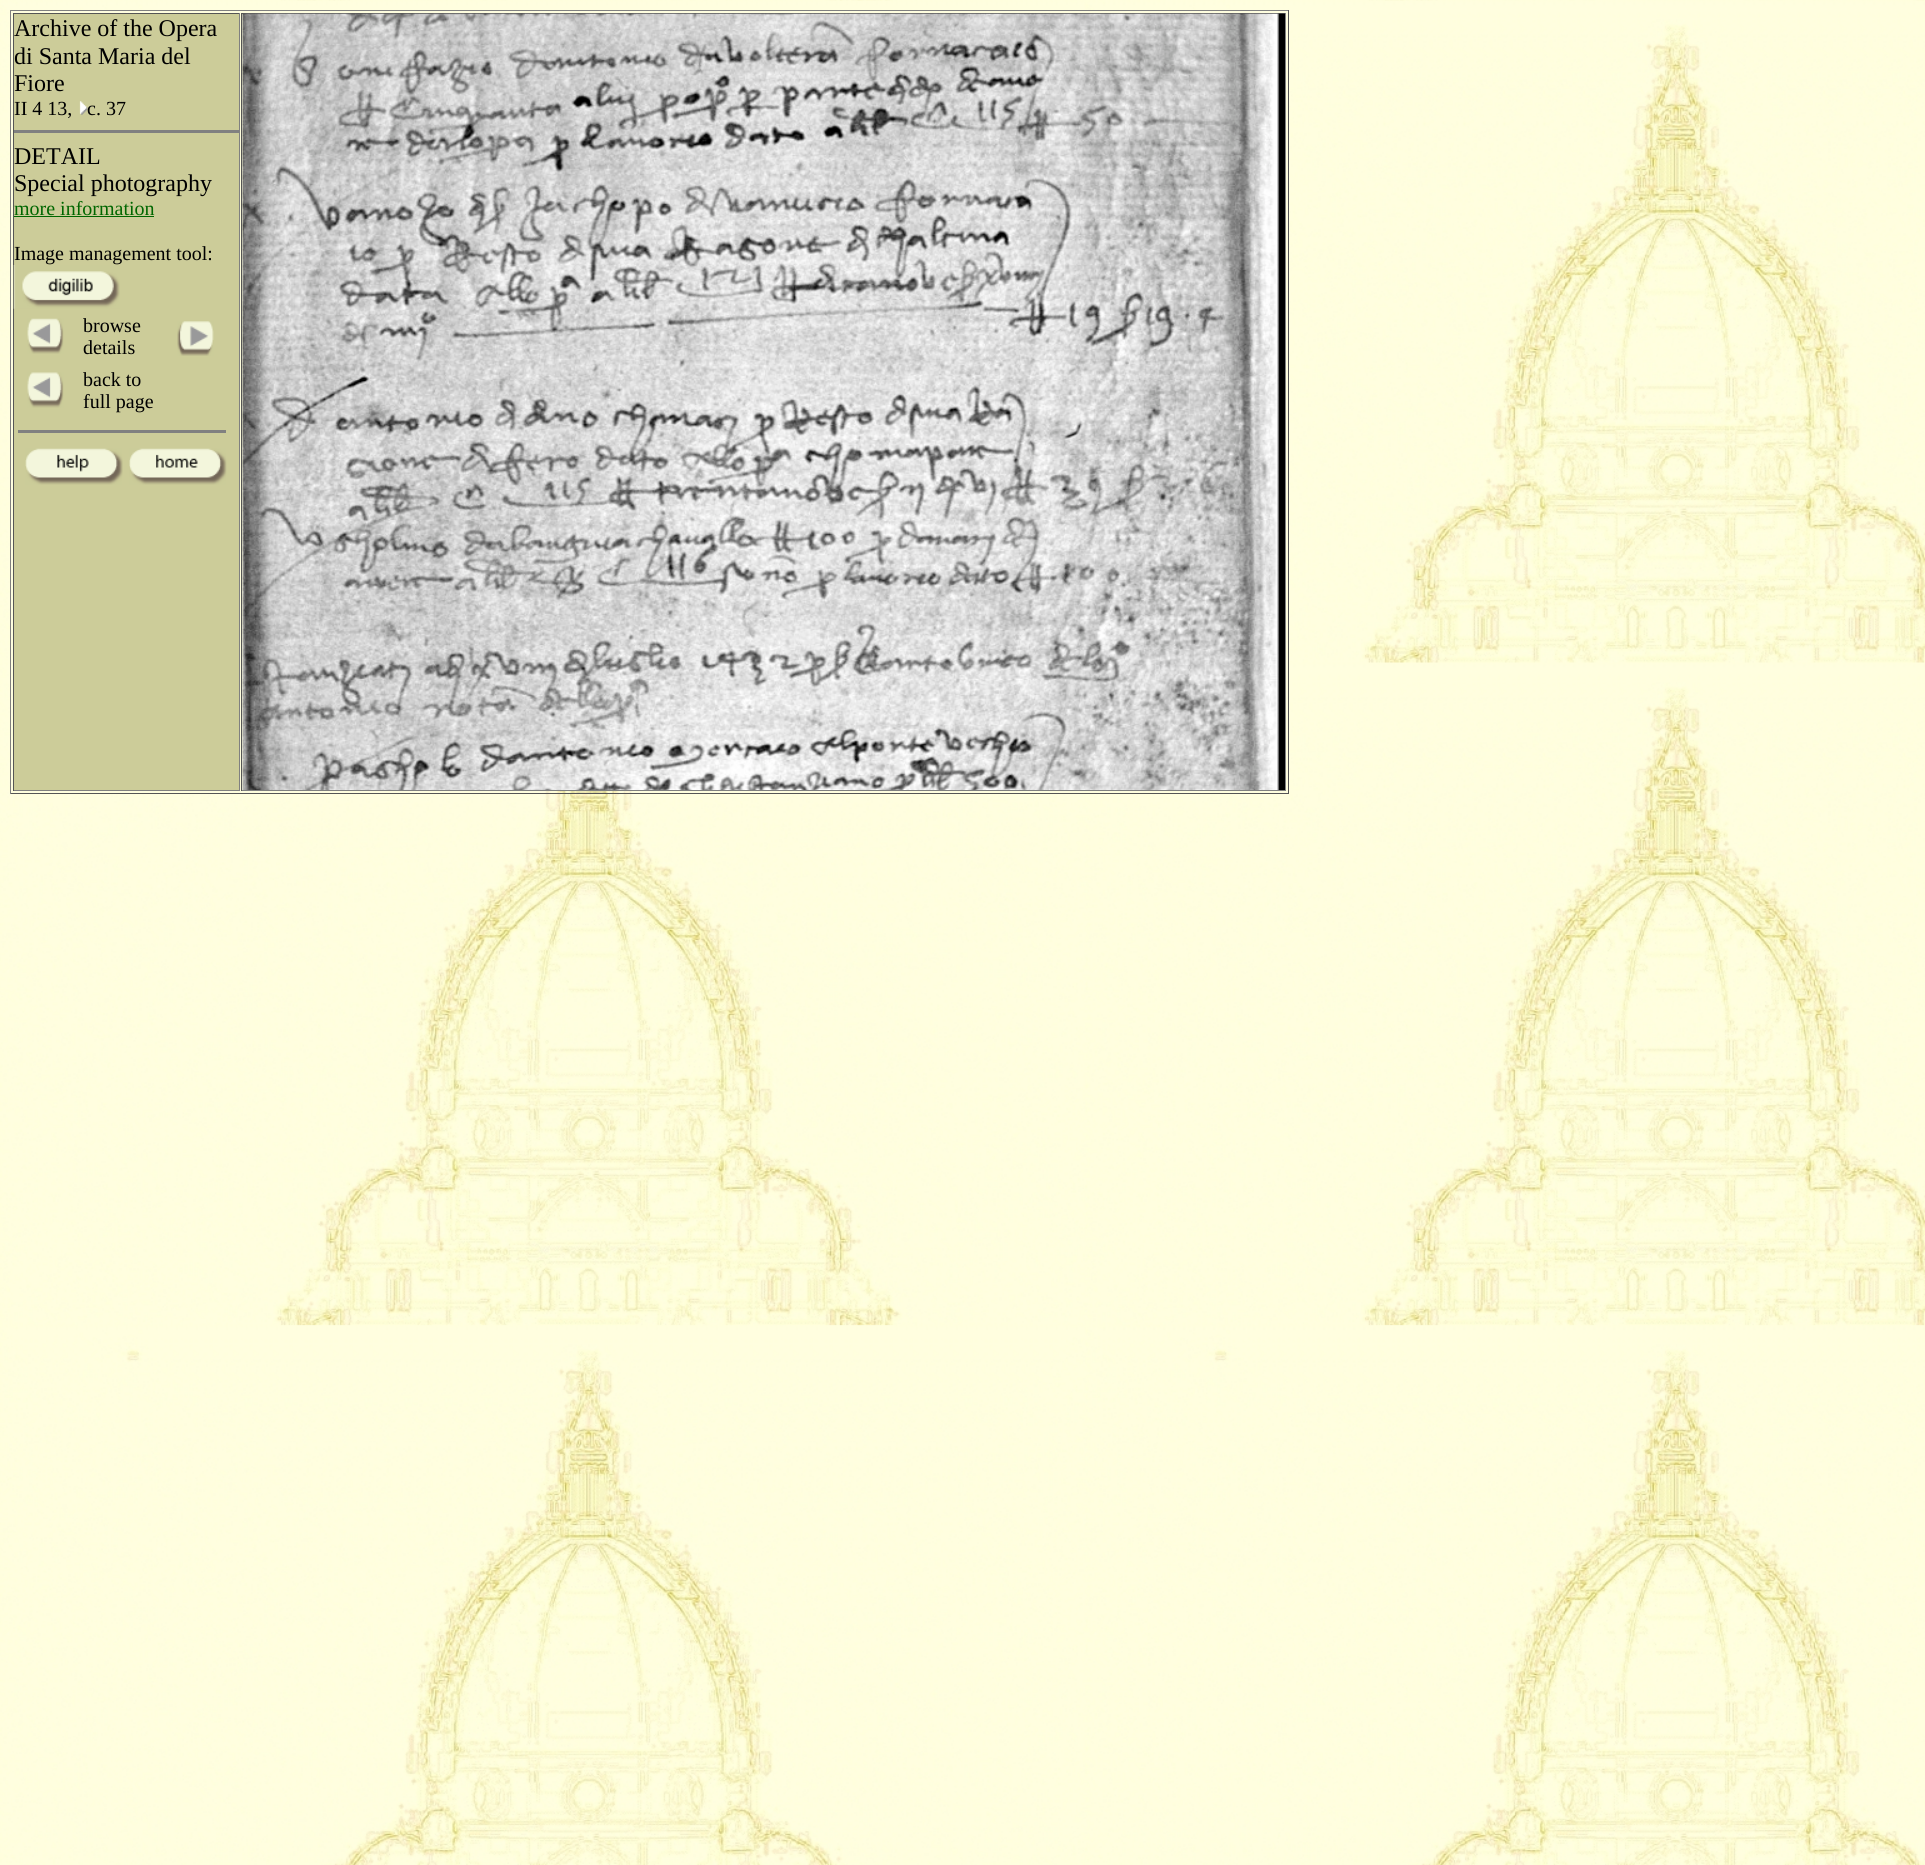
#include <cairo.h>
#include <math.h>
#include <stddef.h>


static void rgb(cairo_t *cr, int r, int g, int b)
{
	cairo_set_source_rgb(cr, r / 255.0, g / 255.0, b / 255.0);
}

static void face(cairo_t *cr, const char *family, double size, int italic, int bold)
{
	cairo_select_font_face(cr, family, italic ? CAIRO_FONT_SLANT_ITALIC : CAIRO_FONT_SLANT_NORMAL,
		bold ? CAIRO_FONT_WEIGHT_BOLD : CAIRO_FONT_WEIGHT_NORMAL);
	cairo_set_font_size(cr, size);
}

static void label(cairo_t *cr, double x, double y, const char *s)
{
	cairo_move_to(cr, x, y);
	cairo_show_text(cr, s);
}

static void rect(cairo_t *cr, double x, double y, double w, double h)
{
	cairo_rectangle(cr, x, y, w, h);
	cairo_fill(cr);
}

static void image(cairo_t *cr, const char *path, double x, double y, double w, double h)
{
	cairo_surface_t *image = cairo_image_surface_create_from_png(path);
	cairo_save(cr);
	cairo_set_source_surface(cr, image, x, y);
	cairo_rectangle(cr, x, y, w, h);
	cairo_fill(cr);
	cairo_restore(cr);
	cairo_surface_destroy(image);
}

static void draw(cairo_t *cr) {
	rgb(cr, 255, 255, 255);
	cairo_paint(cr);
	image(cr, "image0.png", 0, 0, 1925, 1865);
	rgb(cr, 128, 128, 128);
	rect(cr, 10, 10, 1279, 1);
	rgb(cr, 85, 85, 85);
	rect(cr, 1288, 10, 1, 784);
	rect(cr, 10, 793, 1279, 1);
	rgb(cr, 128, 128, 128);
	rect(cr, 10, 10, 1, 784);
	rgb(cr, 204, 204, 153);
	rect(cr, 14, 14, 225, 776);
	rgb(cr, 85, 85, 85);
	rect(cr, 13, 13, 227, 1);
	rgb(cr, 128, 128, 128);
	rect(cr, 239, 13, 1, 778);
	rect(cr, 13, 790, 227, 1);
	rgb(cr, 85, 85, 85);
	rect(cr, 13, 13, 1, 778);
	face(cr, "Liberation Serif", 24, 0, 0);
	rgb(cr, 0, 0, 0);
	label(cr, 14, 36, "Archive of the Opera");
	label(cr, 14, 64, "di Santa Maria del");
	label(cr, 14, 91, "Fiore");
	face(cr, "Liberation Serif", 20, 0, 0);
	label(cr, 14, 115, "II 4 13,");
	image(cr, "image1.png", 79, 101, 9, 14);
	label(cr, 87, 115, "c. 37");
	rgb(cr, 128, 128, 128);
	rect(cr, 14, 130, 225, 3);
	face(cr, "Liberation Serif", 24, 0, 0);
	rgb(cr, 0, 0, 0);
	label(cr, 14, 164, "DETAIL");
	label(cr, 14, 191, "Special photography");
	face(cr, "Liberation Serif", 20, 0, 0);
	rgb(cr, 0, 102, 0);
	label(cr, 14, 215, "more information");
	rect(cr, 14, 216, 140, 1);
	rgb(cr, 0, 0, 0);
	label(cr, 14, 260, "Image management tool:");
	image(cr, "image2.png", 13, 265, 107, 44);
	image(cr, "image3.png", 27, 318, 37, 36);
	label(cr, 83, 332, "browse");
	label(cr, 83, 354, "details");
	image(cr, "image4.png", 177, 321, 37, 35);
	image(cr, "image5.png", 27, 372, 37, 36);
	label(cr, 83, 386, "back to");
	label(cr, 83, 408, "full page");
	rgb(cr, 128, 128, 128);
	rect(cr, 18, 430, 208, 3);
	image(cr, "image6.png", 25, 448, 98, 37);
	image(cr, "image7.png", 129, 448, 98, 37);
	rgb(cr, 85, 85, 85);
	rect(cr, 241, 13, 1045, 1);
	rgb(cr, 128, 128, 128);
	rect(cr, 1285, 13, 1, 778);
	rect(cr, 241, 790, 1045, 1);
	rgb(cr, 85, 85, 85);
	rect(cr, 241, 13, 1, 778);
	image(cr, "image8.png", 242, 13, 1043, 777);
}

int main(void) {
	cairo_surface_t *surface = cairo_image_surface_create(CAIRO_FORMAT_RGB24, 1925, 1865);
	cairo_t *cr = cairo_create(surface);
	cairo_font_options_t *options = cairo_font_options_create();
	cairo_font_options_set_hint_metrics(options, CAIRO_HINT_METRICS_OFF);
	cairo_font_options_set_hint_style(options, CAIRO_HINT_STYLE_NONE);
	cairo_set_font_options(cr, options);
	cairo_set_miter_limit(cr, 4);
	draw(cr);
	cairo_surface_write_to_png(surface, "render.png");
	cairo_font_options_destroy(options);
	cairo_destroy(cr);
	cairo_surface_destroy(surface);
	return 0;
}
